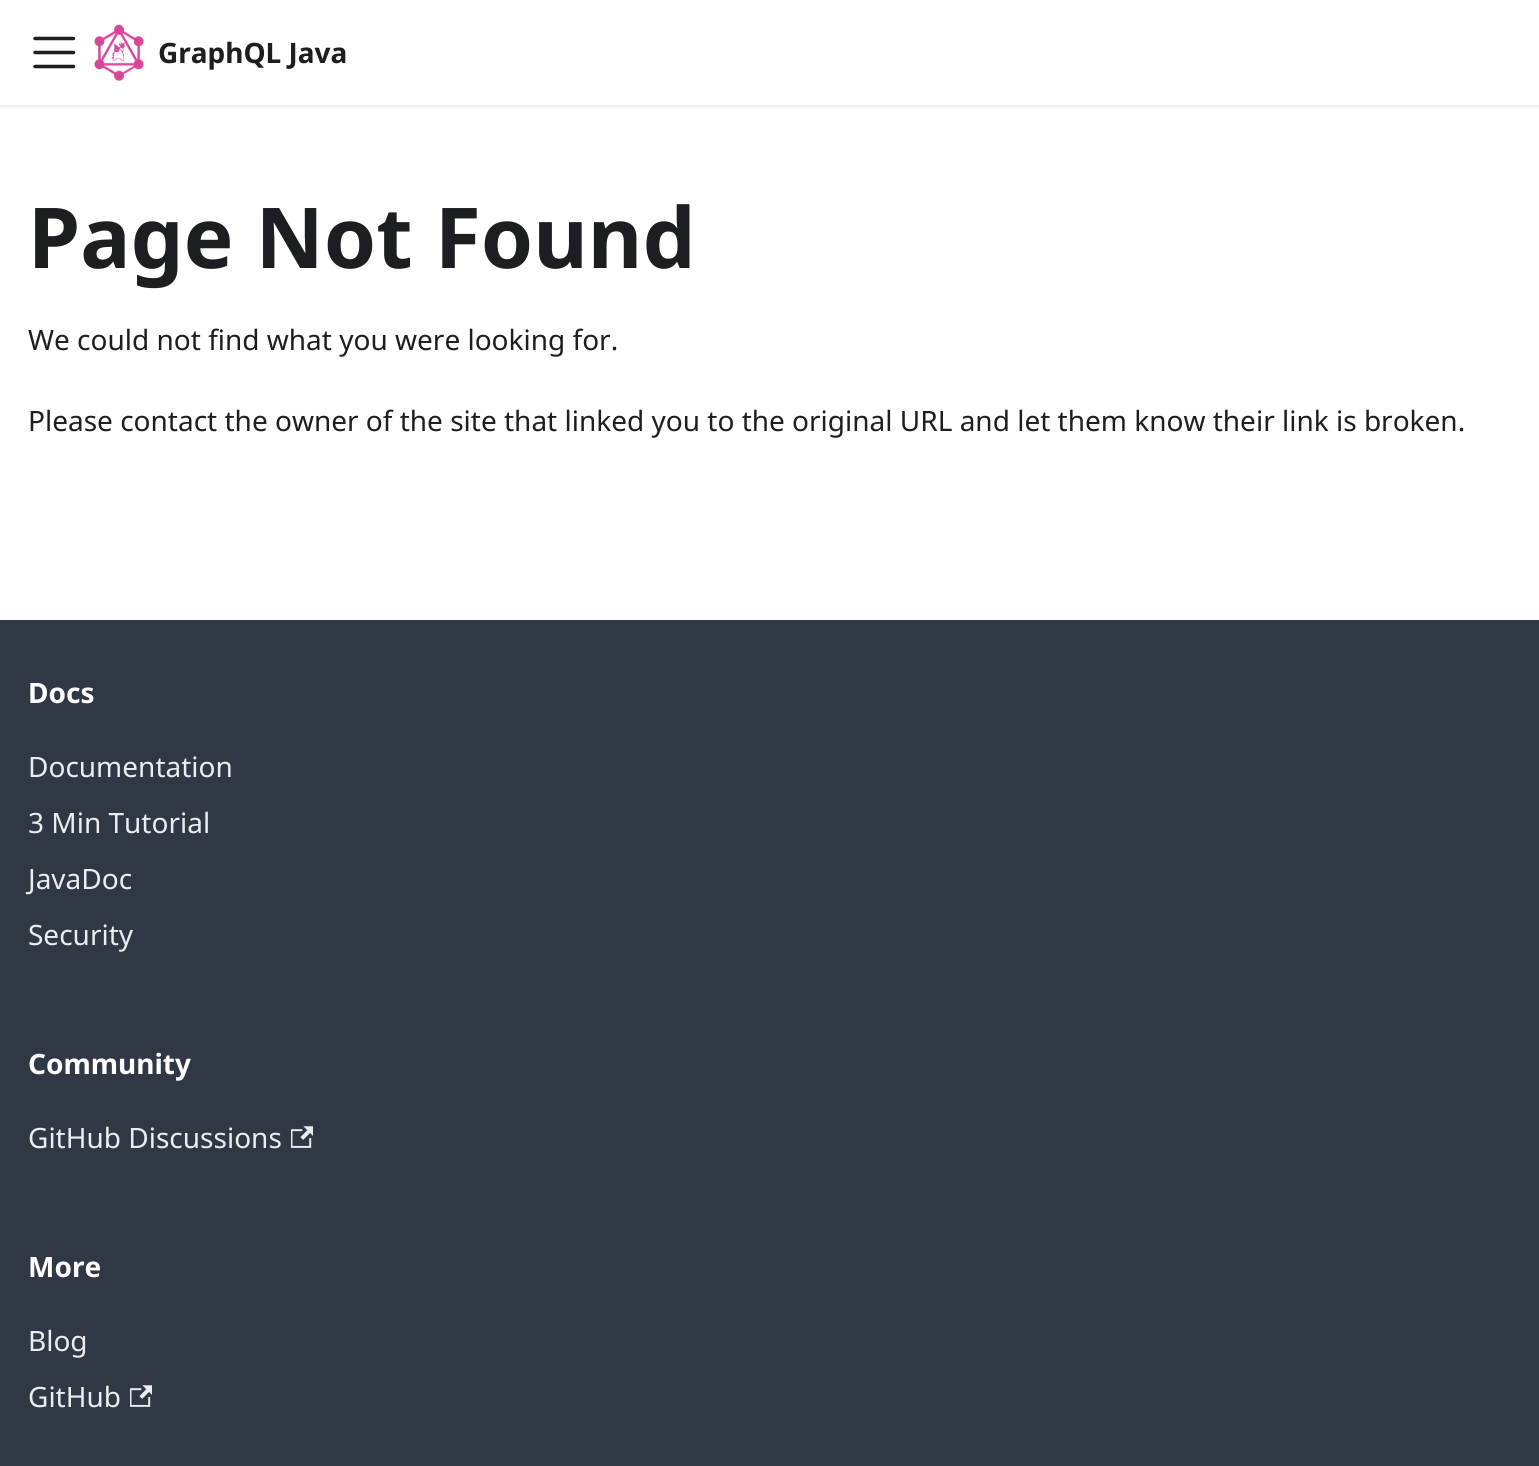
#include <cairo.h>
#include <math.h>
#include <stddef.h>


static void rgb(cairo_t *cr, int r, int g, int b)
{
	cairo_set_source_rgb(cr, r / 255.0, g / 255.0, b / 255.0);
}

static void face(cairo_t *cr, const char *family, double size, int italic, int bold)
{
	cairo_select_font_face(cr, family, italic ? CAIRO_FONT_SLANT_ITALIC : CAIRO_FONT_SLANT_NORMAL,
		bold ? CAIRO_FONT_WEIGHT_BOLD : CAIRO_FONT_WEIGHT_NORMAL);
	cairo_set_font_size(cr, size);
}

static void label(cairo_t *cr, double x, double y, const char *s)
{
	cairo_move_to(cr, x, y);
	cairo_show_text(cr, s);
}

static void rect(cairo_t *cr, double x, double y, double w, double h)
{
	cairo_rectangle(cr, x, y, w, h);
	cairo_fill(cr);
}

static void rrect(cairo_t *cr, double x, double y, double w, double h, double r)
{
	cairo_new_sub_path(cr);
	cairo_arc(cr, x + w - r, y + h - r, r, 0, M_PI / 2);
	cairo_arc(cr, x + r, y + h - r, r, M_PI / 2, M_PI);
	cairo_arc(cr, x + r, y + r, r, M_PI, 1.5 * M_PI);
	cairo_arc(cr, x + w - r, y + r, r, 1.5 * M_PI, 2 * M_PI);
	cairo_close_path(cr);
}

static void soft_shadow(cairo_t *cr, double x, double y, double w, double h, double r, double blur, double alpha)
{
	cairo_push_group_with_content(cr, CAIRO_CONTENT_ALPHA);
	cairo_set_operator(cr, CAIRO_OPERATOR_SOURCE);
	for (int i = 15; i >= -15 && fmin(w, h) + blur * i / 3 > 0; i -= 2) {
		double e = blur * i / 6;
		cairo_set_source_rgba(cr, 0, 0, 0, alpha * erfc((i - 1) / 8.5) / 2);
		rrect(cr, x - e, y - e, w + 2 * e, h + 2 * e, fmax(0, fmin(r + e + blur * .6, fmin(w, h) / 2 + e)));
		cairo_fill(cr);
	}
	cairo_pattern_t *soft = cairo_pop_group(cr);
	cairo_mask(cr, soft);
	cairo_pattern_destroy(soft);
}

static void image(cairo_t *cr, const char *path, double x, double y, double w, double h)
{
	cairo_surface_t *image = cairo_image_surface_create_from_png(path);
	cairo_save(cr);
	cairo_set_source_surface(cr, image, x, y);
	cairo_rectangle(cr, x, y, w, h);
	cairo_fill(cr);
	cairo_restore(cr);
	cairo_surface_destroy(image);
}

static void draw(cairo_t *cr) {
	rgb(cr, 255, 255, 255);
	cairo_paint(cr);
	cairo_save(cr);
	cairo_rectangle(cr, 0, 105, 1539, 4);
	cairo_clip(cr);
	rgb(cr, 0, 0, 0);
	soft_shadow(cr, 0, 2, 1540, 105, 0, 2, 0.1);
	cairo_restore(cr);
	cairo_new_path(cr);
	cairo_move_to(cr, 35, 38.5);
	cairo_line_to(cr, 73.5, 38.5);
	cairo_move_to(cr, 35, 52.5);
	cairo_line_to(cr, 73.5, 52.5);
	cairo_move_to(cr, 35, 66.5);
	cairo_line_to(cr, 73.5, 66.5);
	rgb(cr, 28, 30, 33);
	cairo_set_line_width(cr, 3.5);
	cairo_set_line_cap(cr, CAIRO_LINE_CAP_ROUND);
	cairo_stroke(cr);
	image(cr, "image0.png", 94, 24, 50, 57);
	face(cr, "Noto Sans", 28, 0, 1);
	label(cr, 158, 63, "GraphQL Java");
	face(cr, "Noto Sans", 84, 0, 1);
	label(cr, 28, 268, "Page Not Found");
	face(cr, "Noto Sans", 28, 0, 0);
	label(cr, 28, 350, "We could not find what you were looking for.");
	label(cr, 28, 431, "Please contact the owner of the site that linked you to the original URL and let them know their link is broken.");
	rgb(cr, 48, 56, 70);
	rect(cr, 0, 620, 1539, 846);
	face(cr, "Noto Sans", 28, 0, 1);
	rgb(cr, 255, 255, 255);
	label(cr, 28, 703, "Docs");
	face(cr, "Noto Sans", 28, 0, 0);
	rgb(cr, 235, 237, 240);
	label(cr, 28, 777, "Documentation");
	label(cr, 28, 833, "3 Min Tutorial");
	label(cr, 28, 889, "JavaDoc");
	label(cr, 28, 945, "Security");
	face(cr, "Noto Sans", 28, 0, 1);
	rgb(cr, 255, 255, 255);
	label(cr, 28, 1074, "Community");
	face(cr, "Noto Sans", 28, 0, 0);
	rgb(cr, 235, 237, 240);
	label(cr, 28, 1148, "GitHub Discussions");
	image(cr, "image1.png", 291, 1126, 22, 22);
	face(cr, "Noto Sans", 28, 0, 1);
	rgb(cr, 255, 255, 255);
	label(cr, 28, 1277, "More");
	face(cr, "Noto Sans", 28, 0, 0);
	rgb(cr, 235, 237, 240);
	label(cr, 28, 1351, "Blog");
	label(cr, 28, 1407, "GitHub");
	image(cr, "image1.png", 130, 1385, 22, 22);
}

int main(void) {
	cairo_surface_t *surface = cairo_image_surface_create(CAIRO_FORMAT_RGB24, 1539, 1466);
	cairo_t *cr = cairo_create(surface);
	cairo_font_options_t *options = cairo_font_options_create();
	cairo_font_options_set_hint_metrics(options, CAIRO_HINT_METRICS_OFF);
	cairo_font_options_set_hint_style(options, CAIRO_HINT_STYLE_NONE);
	cairo_set_font_options(cr, options);
	cairo_set_miter_limit(cr, 4);
	draw(cr);
	cairo_surface_write_to_png(surface, "render.png");
	cairo_font_options_destroy(options);
	cairo_destroy(cr);
	cairo_surface_destroy(surface);
	return 0;
}
